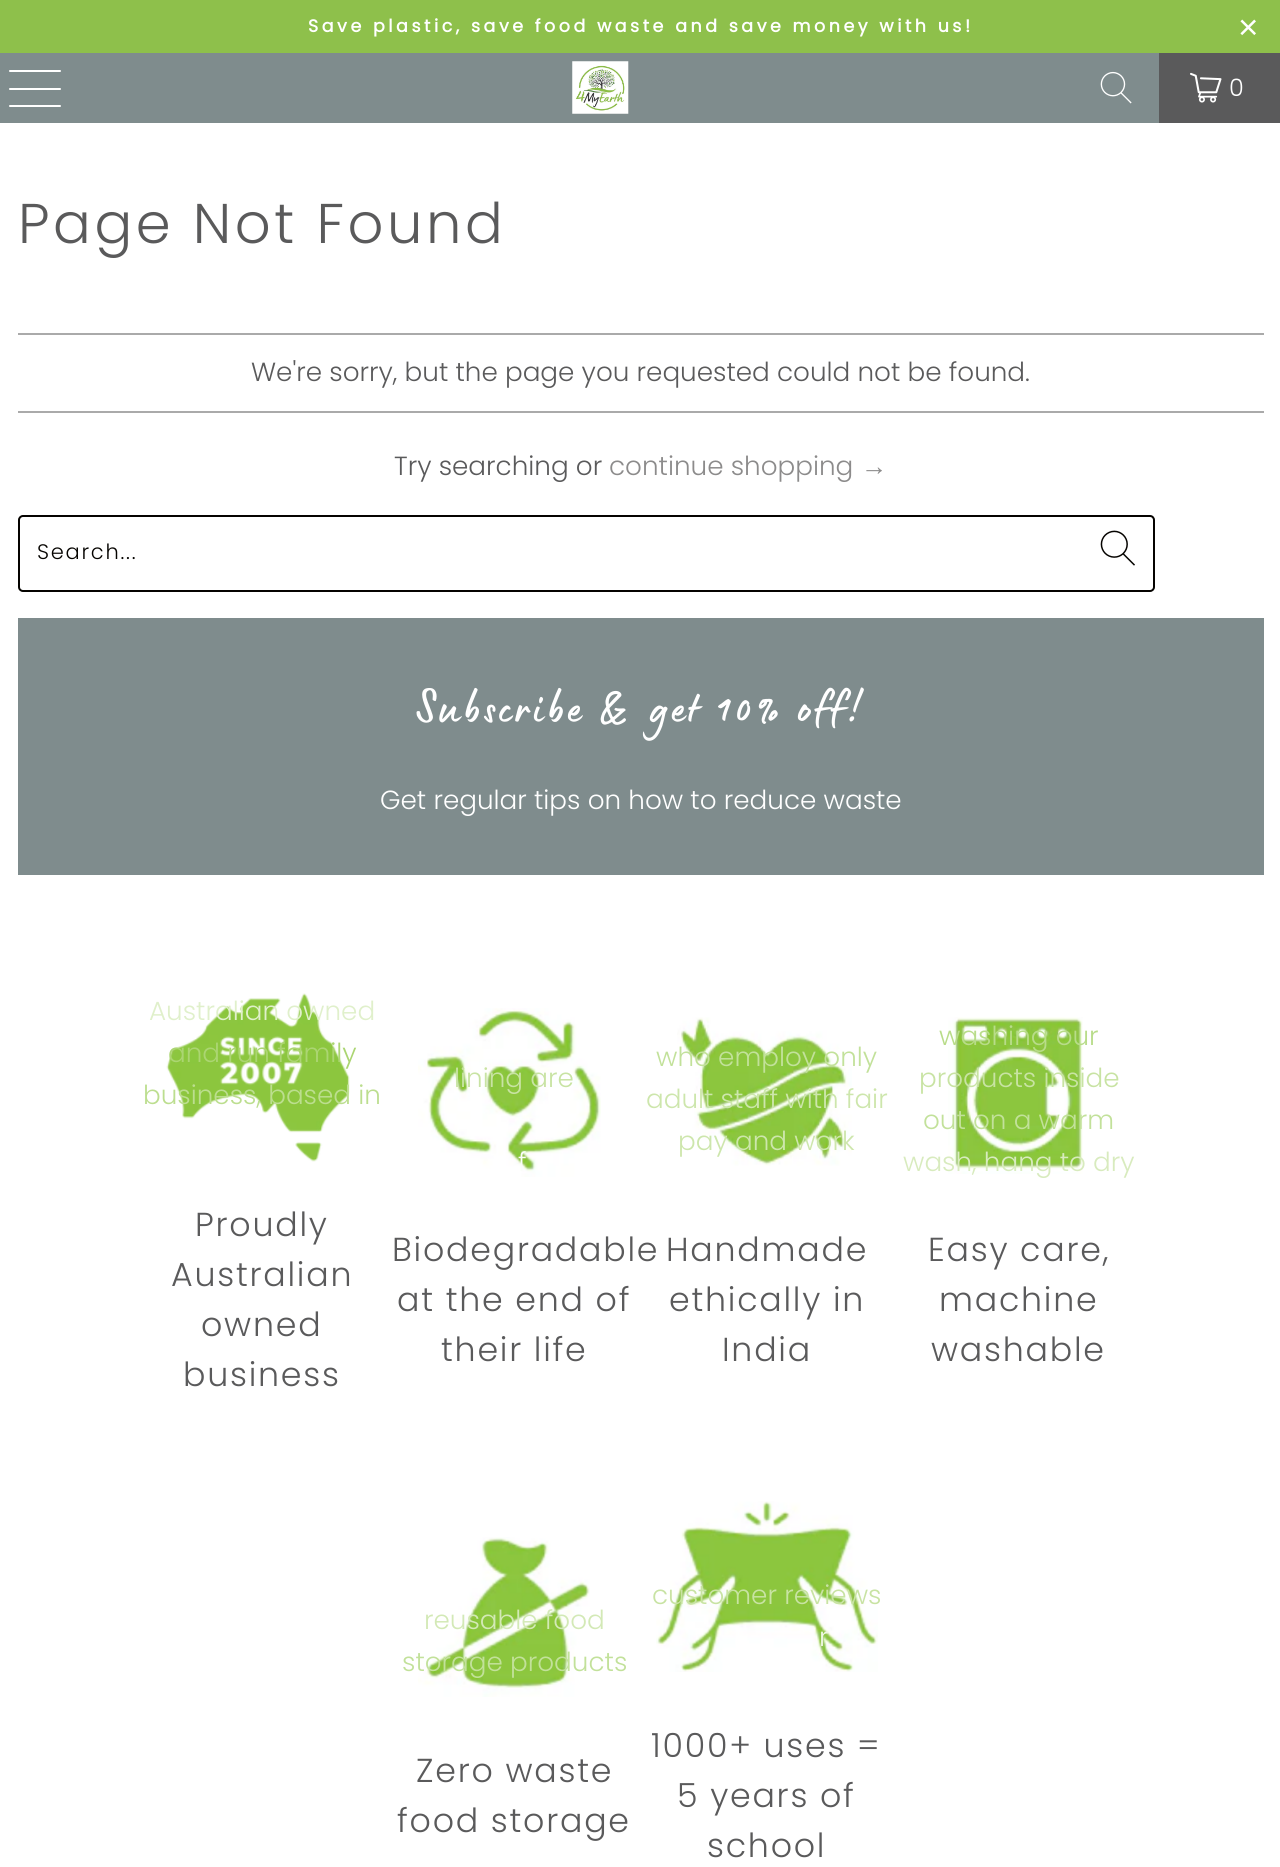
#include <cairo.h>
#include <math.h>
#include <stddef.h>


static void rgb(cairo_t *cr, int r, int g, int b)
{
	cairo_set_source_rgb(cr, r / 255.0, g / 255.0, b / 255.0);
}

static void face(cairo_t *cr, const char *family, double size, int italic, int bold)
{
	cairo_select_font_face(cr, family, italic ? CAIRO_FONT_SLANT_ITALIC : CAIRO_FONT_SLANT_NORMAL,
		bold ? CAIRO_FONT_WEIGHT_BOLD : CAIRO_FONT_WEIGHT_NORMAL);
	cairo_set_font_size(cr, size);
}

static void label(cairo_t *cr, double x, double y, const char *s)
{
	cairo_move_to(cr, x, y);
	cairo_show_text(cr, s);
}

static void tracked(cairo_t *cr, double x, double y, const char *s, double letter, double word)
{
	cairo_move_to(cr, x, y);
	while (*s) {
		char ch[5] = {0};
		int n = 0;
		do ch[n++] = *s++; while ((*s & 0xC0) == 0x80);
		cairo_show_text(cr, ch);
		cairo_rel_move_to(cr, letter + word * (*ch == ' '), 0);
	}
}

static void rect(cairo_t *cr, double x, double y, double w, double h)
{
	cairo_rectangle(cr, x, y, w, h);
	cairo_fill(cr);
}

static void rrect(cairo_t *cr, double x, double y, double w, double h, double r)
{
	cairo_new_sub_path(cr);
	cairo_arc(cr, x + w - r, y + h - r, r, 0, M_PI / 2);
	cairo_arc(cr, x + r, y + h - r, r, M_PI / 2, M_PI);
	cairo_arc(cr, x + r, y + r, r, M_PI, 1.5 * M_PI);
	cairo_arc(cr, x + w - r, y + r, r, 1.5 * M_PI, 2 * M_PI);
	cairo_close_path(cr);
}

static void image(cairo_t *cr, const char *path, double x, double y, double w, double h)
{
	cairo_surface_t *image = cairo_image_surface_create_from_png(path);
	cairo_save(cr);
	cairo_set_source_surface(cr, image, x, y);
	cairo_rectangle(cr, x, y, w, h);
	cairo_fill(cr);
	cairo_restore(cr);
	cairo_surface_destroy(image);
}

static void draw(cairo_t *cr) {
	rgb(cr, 255, 255, 255);
	cairo_paint(cr);
	rgb(cr, 142, 192, 75);
	rect(cr, 0, 0, 1280, 53);
	face(cr, "Poppins", 17.5, 0, 1);
	rgb(cr, 255, 255, 255);
	tracked(cr, 308, 32, "Save plastic, save food waste and save money with us!", 3.5, 0);
	face(cr, "Liberation Sans", 35, 0, 0);
	tracked(cr, 1238, 39, "×", 3.5, 0);
	rgb(cr, 127, 140, 141);
	rect(cr, 0, 53, 1159, 70);
	rgb(cr, 255, 255, 255);
	rrect(cr, 9, 70, 52, 2, 1);
	cairo_fill(cr);
	rrect(cr, 9, 88, 52, 2, 1);
	cairo_fill(cr);
	rrect(cr, 9, 105, 52, 2, 1);
	cairo_fill(cr);
	image(cr, "image0.png", 572, 61, 57, 53);
	image(cr, "image1.png", 1100, 71, 32, 33);
	rgb(cr, 90, 90, 91);
	rect(cr, 1159, 53, 121, 70);
	image(cr, "image2.png", 1190, 72, 32, 31);
	face(cr, "Poppins Light", 24, 0, 0);
	rgb(cr, 255, 255, 255);
	tracked(cr, 1229, 96, "0", 1.75, 0);
	face(cr, "Poppins Light", 56, 0, 0);
	rgb(cr, 90, 90, 91);
	tracked(cr, 18, 243, "Page Not Found", 3.5, 0);
	rgb(cr, 170, 170, 170);
	rect(cr, 18, 333, 1246, 2);
	rect(cr, 18, 411, 1246, 2);
	face(cr, "Poppins Light", 26.25, 0, 0);
	rgb(cr, 90, 90, 91);
	label(cr, 251, 381, "We're sorry, but the page you requested could not be found.");
	label(cr, 394, 475, "Try searching or");
	rgb(cr, 140, 139, 139);
	label(cr, 609, 475, "continue shopping");
	face(cr, "Liberation Sans", 26.25, 0, 0);
	label(cr, 861, 475, "→");
	rrect(cr, 19, 516, 1135, 75, 4);
	rgb(cr, 5, 3, 0);
	cairo_stroke(cr);
	face(cr, "Poppins Light", 21, 0, 0);
	tracked(cr, 37, 559, "Search...", 1.75, 0);
	image(cr, "image3.png", 1100, 530, 35, 36);
	rgb(cr, 127, 140, 141);
	rect(cr, 18, 618, 1246, 257);
	image(cr, "image4.png", 416, 687, 448, 54);
	face(cr, "Poppins Light", 26.25, 0, 0);
	rgb(cr, 255, 255, 255);
	label(cr, 380, 809, "Get regular tips on how to reduce waste");
	image(cr, "image5.png", 166, 993, 184, 169);
	rgb(cr, 224, 240, 203);
	label(cr, 149, 1020, "Australian owned");
	rgb(cr, 171, 213, 114);
	label(cr, 168, 1062, "and run family");
	rgb(cr, 188, 222, 143);
	label(cr, 143, 1104, "business, based in");
	face(cr, "Poppins Light", 33.25, 0, 0);
	rgb(cr, 90, 90, 91);
	tracked(cr, 195, 1236, "Proudly", 1.75, 0);
	tracked(cr, 171, 1286, "Australian", 1.75, 0);
	tracked(cr, 201, 1336, "owned", 1.75, 0);
	tracked(cr, 183, 1386, "business", 1.75, 0);
	image(cr, "image6.png", 418, 1008, 183, 169);
	face(cr, "Poppins Light", 26.25, 0, 0);
	rgb(cr, 200, 227, 163);
	label(cr, 454, 1087, "lining are");
	rgb(cr, 251, 253, 249);
	label(cr, 518, 1171, "f");
	face(cr, "Poppins Light", 33.25, 0, 0);
	rgb(cr, 90, 90, 91);
	tracked(cr, 392, 1261, "Biodegradable", 1.75, 0);
	tracked(cr, 397, 1311, "at the end of", 1.75, 0);
	tracked(cr, 441, 1361, "their life", 1.75, 0);
	image(cr, "image7.png", 677, 1017, 175, 149);
	face(cr, "Poppins Light", 26.25, 0, 0);
	rgb(cr, 194, 225, 154);
	label(cr, 656, 1066, "who employ only");
	rgb(cr, 205, 230, 172);
	label(cr, 646, 1108, "adult staff with fair");
	label(cr, 678, 1150, "pay and work");
	face(cr, "Poppins Light", 33.25, 0, 0);
	rgb(cr, 90, 90, 91);
	tracked(cr, 666, 1261, "Handmade", 1.75, 0);
	tracked(cr, 669, 1311, "ethically in", 1.75, 0);
	tracked(cr, 722, 1361, "India", 1.75, 0);
	image(cr, "image8.png", 948, 1017, 135, 157);
	face(cr, "Poppins Light", 26.25, 0, 0);
	rgb(cr, 184, 220, 137);
	label(cr, 939, 1045, "washing our");
	rgb(cr, 200, 227, 163);
	label(cr, 919, 1087, "products inside");
	rgb(cr, 194, 225, 154);
	label(cr, 923, 1129, "out on a warm");
	rgb(cr, 216, 235, 190);
	label(cr, 903, 1171, "wash, hang to dry");
	face(cr, "Poppins Light", 33.25, 0, 0);
	rgb(cr, 90, 90, 91);
	tracked(cr, 928, 1261, "Easy care,", 1.75, 0);
	tracked(cr, 939, 1311, "machine", 1.75, 0);
	tracked(cr, 931, 1361, "washable", 1.75, 0);
	image(cr, "image9.png", 418, 1537, 172, 160);
	face(cr, "Poppins Light", 26.25, 0, 0);
	rgb(cr, 211, 233, 182);
	label(cr, 424, 1629, "reusable food");
	rgb(cr, 194, 225, 154);
	label(cr, 402, 1671, "storage products");
	face(cr, "Poppins Light", 33.25, 0, 0);
	rgb(cr, 90, 90, 91);
	tracked(cr, 416, 1782, "Zero waste", 1.75, 0);
	tracked(cr, 397, 1832, "food storage", 1.75, 0);
	image(cr, "image10.png", 656, 1501, 222, 171);
	face(cr, "Poppins Light", 26.25, 0, 0);
	rgb(cr, 200, 227, 163);
	label(cr, 652, 1604, "customer reviews");
	rgb(cr, 239, 247, 229);
	label(cr, 819, 1646, "r");
	face(cr, "Poppins Light", 33.25, 0, 0);
	rgb(cr, 90, 90, 91);
	tracked(cr, 651, 1757, "1000+ uses =", 1.75, 0);
	tracked(cr, 677, 1807, "5 years of", 1.75, 0);
	tracked(cr, 707, 1857, "school", 1.75, 0);
}

int main(void) {
	cairo_surface_t *surface = cairo_image_surface_create(CAIRO_FORMAT_RGB24, 1280, 1867);
	cairo_t *cr = cairo_create(surface);
	cairo_font_options_t *options = cairo_font_options_create();
	cairo_font_options_set_hint_metrics(options, CAIRO_HINT_METRICS_OFF);
	cairo_font_options_set_hint_style(options, CAIRO_HINT_STYLE_NONE);
	cairo_set_font_options(cr, options);
	cairo_set_miter_limit(cr, 4);
	draw(cr);
	cairo_surface_write_to_png(surface, "render.png");
	cairo_font_options_destroy(options);
	cairo_destroy(cr);
	cairo_surface_destroy(surface);
	return 0;
}
